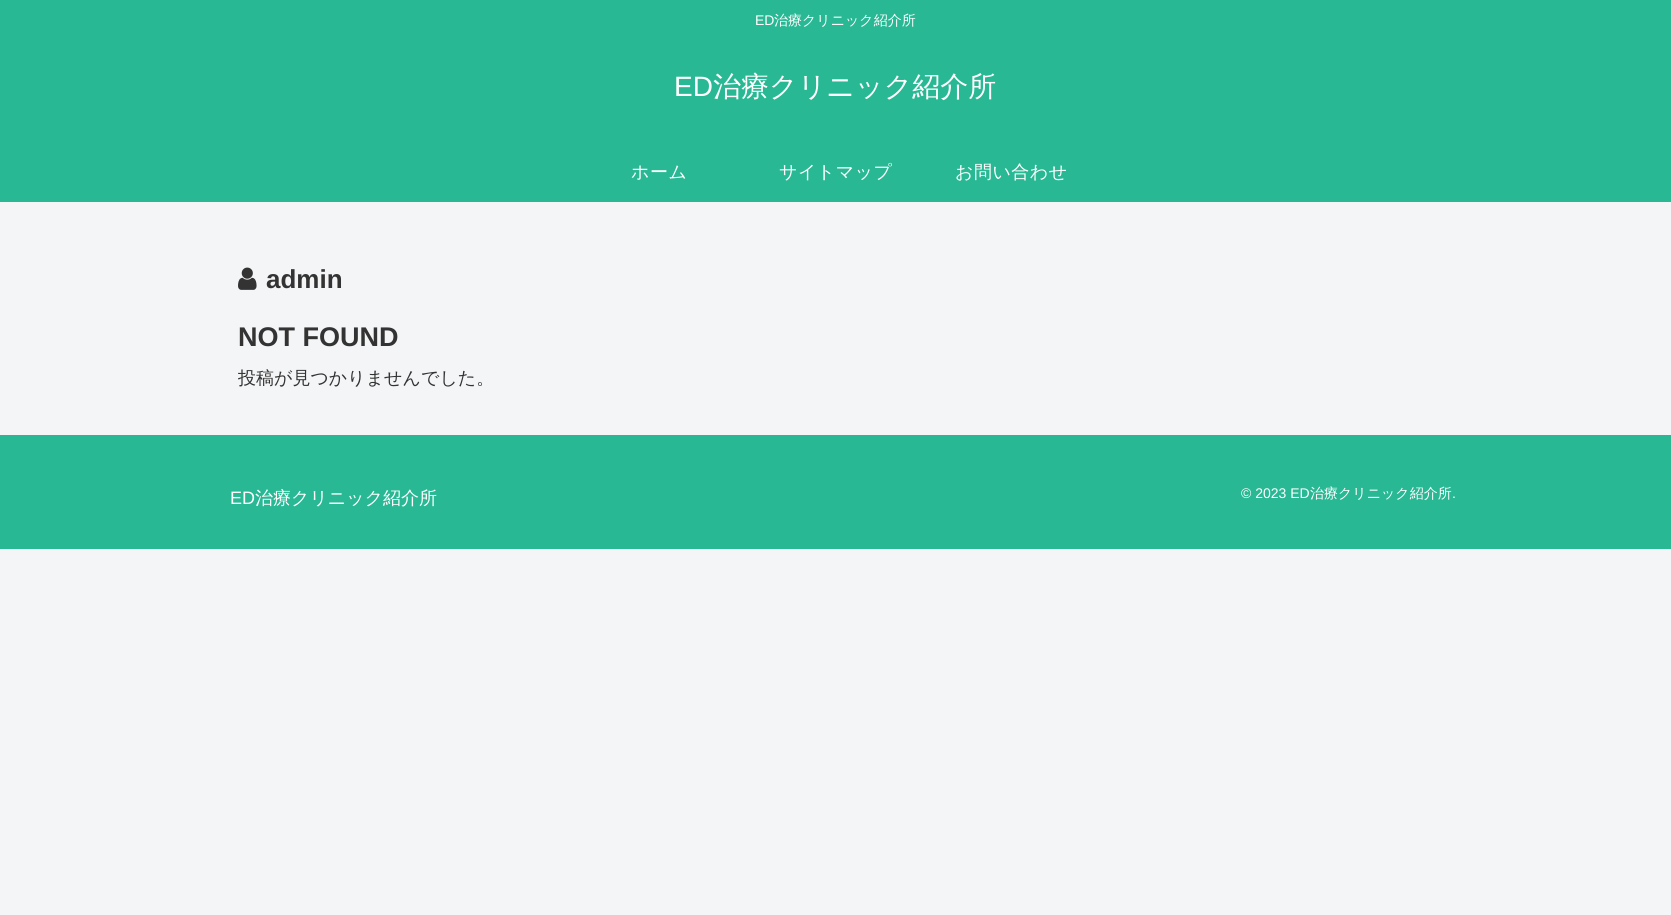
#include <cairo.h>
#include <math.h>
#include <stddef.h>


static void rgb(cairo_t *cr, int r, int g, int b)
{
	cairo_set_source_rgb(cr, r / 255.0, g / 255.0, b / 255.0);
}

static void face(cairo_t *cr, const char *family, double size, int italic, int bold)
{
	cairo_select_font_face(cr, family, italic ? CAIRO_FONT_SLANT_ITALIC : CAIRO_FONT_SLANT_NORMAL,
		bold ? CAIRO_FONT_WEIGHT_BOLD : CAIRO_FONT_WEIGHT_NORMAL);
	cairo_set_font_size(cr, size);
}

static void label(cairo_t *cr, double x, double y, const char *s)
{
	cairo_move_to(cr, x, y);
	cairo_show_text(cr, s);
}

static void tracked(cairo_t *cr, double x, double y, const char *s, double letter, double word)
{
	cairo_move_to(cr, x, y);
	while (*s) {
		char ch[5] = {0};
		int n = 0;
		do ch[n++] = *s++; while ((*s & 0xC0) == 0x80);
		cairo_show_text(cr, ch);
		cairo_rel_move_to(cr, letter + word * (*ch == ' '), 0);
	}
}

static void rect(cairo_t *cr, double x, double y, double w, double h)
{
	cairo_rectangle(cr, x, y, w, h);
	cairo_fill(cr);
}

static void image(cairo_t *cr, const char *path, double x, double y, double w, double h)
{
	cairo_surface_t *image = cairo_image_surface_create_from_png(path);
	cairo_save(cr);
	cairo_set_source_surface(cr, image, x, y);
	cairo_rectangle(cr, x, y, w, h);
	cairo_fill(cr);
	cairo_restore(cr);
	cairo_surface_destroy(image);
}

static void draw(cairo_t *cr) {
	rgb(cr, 244, 245, 247);
	cairo_paint(cr);
	rgb(cr, 40, 184, 147);
	rect(cr, 0, 0, 1671, 202);
	face(cr, "Liberation Sans", 14, 0, 0);
	rgb(cr, 255, 255, 255);
	label(cr, 755, 25, "ED");
	face(cr, "WenQuanYi Zen Hei Medium", 14, 0, 0);
	label(cr, 774, 25, "治療クリニック紹介所");
	face(cr, "Liberation Sans", 28, 0, 0);
	label(cr, 674, 96, "ED");
	face(cr, "WenQuanYi Zen Hei Medium", 28, 0, 0);
	label(cr, 713, 96, "治療クリニック紹介所");
	face(cr, "WenQuanYi Zen Hei Medium", 18, 0, 0);
	tracked(cr, 631, 178, "ホーム", 0.5, 0);
	tracked(cr, 779, 178, "サイトマップ", 0.5, 0);
	tracked(cr, 955, 178, "お問い合わせ", 0.5, 0);
	image(cr, "image0.png", 238, 267, 19, 23);
	face(cr, "Liberation Sans", 26, 0, 1);
	rgb(cr, 51, 51, 51);
	label(cr, 266, 288, "admin");
	face(cr, "Liberation Sans", 27, 0, 1);
	label(cr, 238, 346, "NOT FOUND");
	face(cr, "WenQuanYi Zen Hei Medium", 18, 0, 0);
	label(cr, 238, 384, "投稿が見つかりませんでした。");
	rgb(cr, 40, 184, 147);
	rect(cr, 0, 435, 1671, 114);
	face(cr, "Liberation Sans", 18, 0, 0);
	rgb(cr, 255, 255, 255);
	label(cr, 230, 504, "ED");
	face(cr, "WenQuanYi Zen Hei Medium", 18, 0, 0);
	label(cr, 255, 504, "治療クリニック紹介所");
	face(cr, "Liberation Sans", 14, 0, 0);
	label(cr, 1241, 498, "© 2023 ED");
	face(cr, "WenQuanYi Zen Hei Medium", 14, 0, 0);
	label(cr, 1310, 498, "治療クリニック紹介所");
	face(cr, "Liberation Sans", 14, 0, 0);
	label(cr, 1452, 498, ".");
}

int main(void) {
	cairo_surface_t *surface = cairo_image_surface_create(CAIRO_FORMAT_RGB24, 1671, 915);
	cairo_t *cr = cairo_create(surface);
	cairo_font_options_t *options = cairo_font_options_create();
	cairo_font_options_set_hint_metrics(options, CAIRO_HINT_METRICS_OFF);
	cairo_font_options_set_hint_style(options, CAIRO_HINT_STYLE_NONE);
	cairo_set_font_options(cr, options);
	cairo_set_miter_limit(cr, 4);
	draw(cr);
	cairo_surface_write_to_png(surface, "render.png");
	cairo_font_options_destroy(options);
	cairo_destroy(cr);
	cairo_surface_destroy(surface);
	return 0;
}
